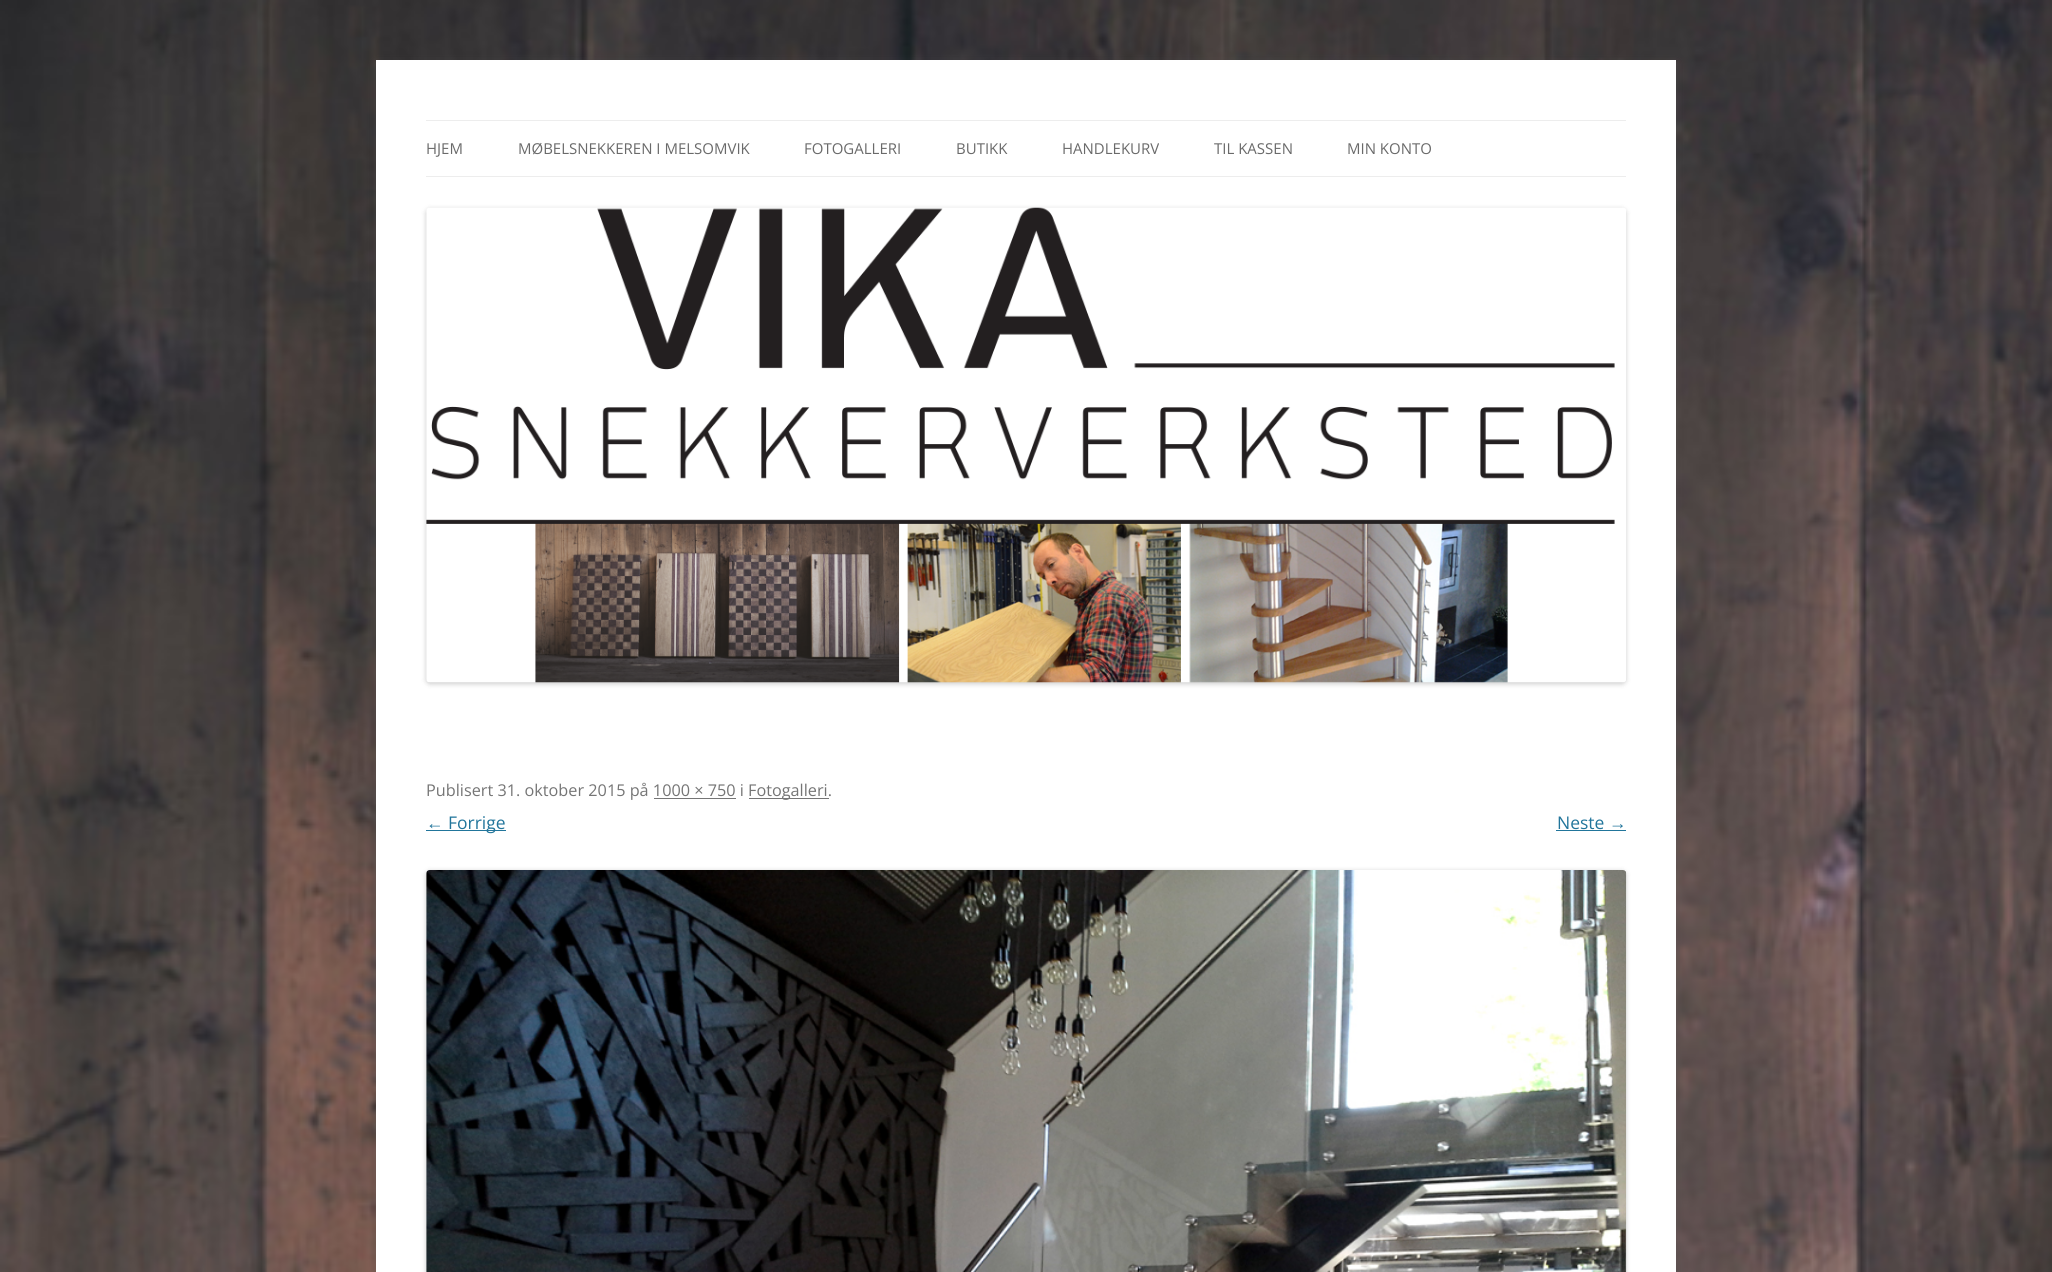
#include <cairo.h>
#include <math.h>
#include <stddef.h>


static void rgb(cairo_t *cr, int r, int g, int b)
{
	cairo_set_source_rgb(cr, r / 255.0, g / 255.0, b / 255.0);
}

static void face(cairo_t *cr, const char *family, double size, int italic, int bold)
{
	cairo_select_font_face(cr, family, italic ? CAIRO_FONT_SLANT_ITALIC : CAIRO_FONT_SLANT_NORMAL,
		bold ? CAIRO_FONT_WEIGHT_BOLD : CAIRO_FONT_WEIGHT_NORMAL);
	cairo_set_font_size(cr, size);
}

static void label(cairo_t *cr, double x, double y, const char *s)
{
	cairo_move_to(cr, x, y);
	cairo_show_text(cr, s);
}

static void rect(cairo_t *cr, double x, double y, double w, double h)
{
	cairo_rectangle(cr, x, y, w, h);
	cairo_fill(cr);
}

static void rrect(cairo_t *cr, double x, double y, double w, double h, double r)
{
	cairo_new_sub_path(cr);
	cairo_arc(cr, x + w - r, y + h - r, r, 0, M_PI / 2);
	cairo_arc(cr, x + r, y + h - r, r, M_PI / 2, M_PI);
	cairo_arc(cr, x + r, y + r, r, M_PI, 1.5 * M_PI);
	cairo_arc(cr, x + w - r, y + r, r, 1.5 * M_PI, 2 * M_PI);
	cairo_close_path(cr);
}

static void soft_shadow(cairo_t *cr, double x, double y, double w, double h, double r, double blur, double alpha)
{
	cairo_push_group_with_content(cr, CAIRO_CONTENT_ALPHA);
	cairo_set_operator(cr, CAIRO_OPERATOR_SOURCE);
	for (int i = 15; i >= -15 && fmin(w, h) + blur * i / 3 > 0; i -= 2) {
		double e = blur * i / 6;
		cairo_set_source_rgba(cr, 0, 0, 0, alpha * erfc((i - 1) / 8.5) / 2);
		rrect(cr, x - e, y - e, w + 2 * e, h + 2 * e, fmax(0, fmin(r + e + blur * .6, fmin(w, h) / 2 + e)));
		cairo_fill(cr);
	}
	cairo_pattern_t *soft = cairo_pop_group(cr);
	cairo_mask(cr, soft);
	cairo_pattern_destroy(soft);
}

static void image(cairo_t *cr, const char *path, double x, double y, double w, double h)
{
	cairo_surface_t *image = cairo_image_surface_create_from_png(path);
	cairo_save(cr);
	cairo_set_source_surface(cr, image, x, y);
	cairo_rectangle(cr, x, y, w, h);
	cairo_fill(cr);
	cairo_restore(cr);
	cairo_surface_destroy(image);
}

static void draw(cairo_t *cr) {
	rgb(cr, 255, 255, 255);
	cairo_paint(cr);
	image(cr, "image0.png", 0, 0, 2052, 1272);
	rgb(cr, 100, 100, 100);
	soft_shadow(cr, 376, 63, 1300, 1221, 0, 4, 0.3);
	rgb(cr, 255, 255, 255);
	rect(cr, 376, 60, 1300, 1212);
	rgb(cr, 237, 237, 237);
	rect(cr, 426, 120, 1200, 1);
	rect(cr, 426, 176, 1200, 1);
	face(cr, "Open Sans", 15, 0, 0);
	rgb(cr, 106, 106, 106);
	label(cr, 426, 154, "HJEM");
	label(cr, 518, 154, "MØBELSNEKKEREN I MELSOMVIK");
	label(cr, 804, 154, "FOTOGALLERI");
	label(cr, 956, 154, "BUTIKK");
	label(cr, 1062, 154, "HANDLEKURV");
	label(cr, 1214, 154, "TIL KASSEN");
	label(cr, 1347, 154, "MIN KONTO");
	rgb(cr, 0, 0, 0);
	soft_shadow(cr, 426, 209, 1200, 475, 4, 2.5, 0.2);
	image(cr, "image1.png", 426, 207, 1200, 476);
	face(cr, "Open Sans", 16.25, 0, 0);
	rgb(cr, 117, 117, 117);
	label(cr, 426, 796, "Publisert 31. oktober 2015 på 1000 × 750 i");
	rect(cr, 749, 798, 80, 1);
	label(cr, 748, 796, "Fotogalleri.");
	rect(cr, 654, 798, 82, 1);
	face(cr, "Liberation Sans", 17.5, 0, 0);
	rgb(cr, 33, 117, 155);
	label(cr, 426, 829, "←");
	rect(cr, 426, 830, 80, 1);
	face(cr, "Open Sans", 17.5, 0, 0);
	label(cr, 448, 829, "Forrige");
	label(cr, 1557, 829, "Neste");
	face(cr, "Liberation Sans", 17.5, 0, 0);
	label(cr, 1609, 829, "→");
	rect(cr, 1556, 830, 70, 1);
	rgb(cr, 0, 0, 0);
	soft_shadow(cr, 426, 871, 1200, 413, 4, 2.5, 0.2);
	image(cr, "image2.png", 426, 870, 1201, 402);
}

int main(void) {
	cairo_surface_t *surface = cairo_image_surface_create(CAIRO_FORMAT_RGB24, 2052, 1272);
	cairo_t *cr = cairo_create(surface);
	cairo_font_options_t *options = cairo_font_options_create();
	cairo_font_options_set_hint_metrics(options, CAIRO_HINT_METRICS_OFF);
	cairo_font_options_set_hint_style(options, CAIRO_HINT_STYLE_NONE);
	cairo_set_font_options(cr, options);
	cairo_set_miter_limit(cr, 4);
	draw(cr);
	cairo_surface_write_to_png(surface, "render.png");
	cairo_font_options_destroy(options);
	cairo_destroy(cr);
	cairo_surface_destroy(surface);
	return 0;
}
